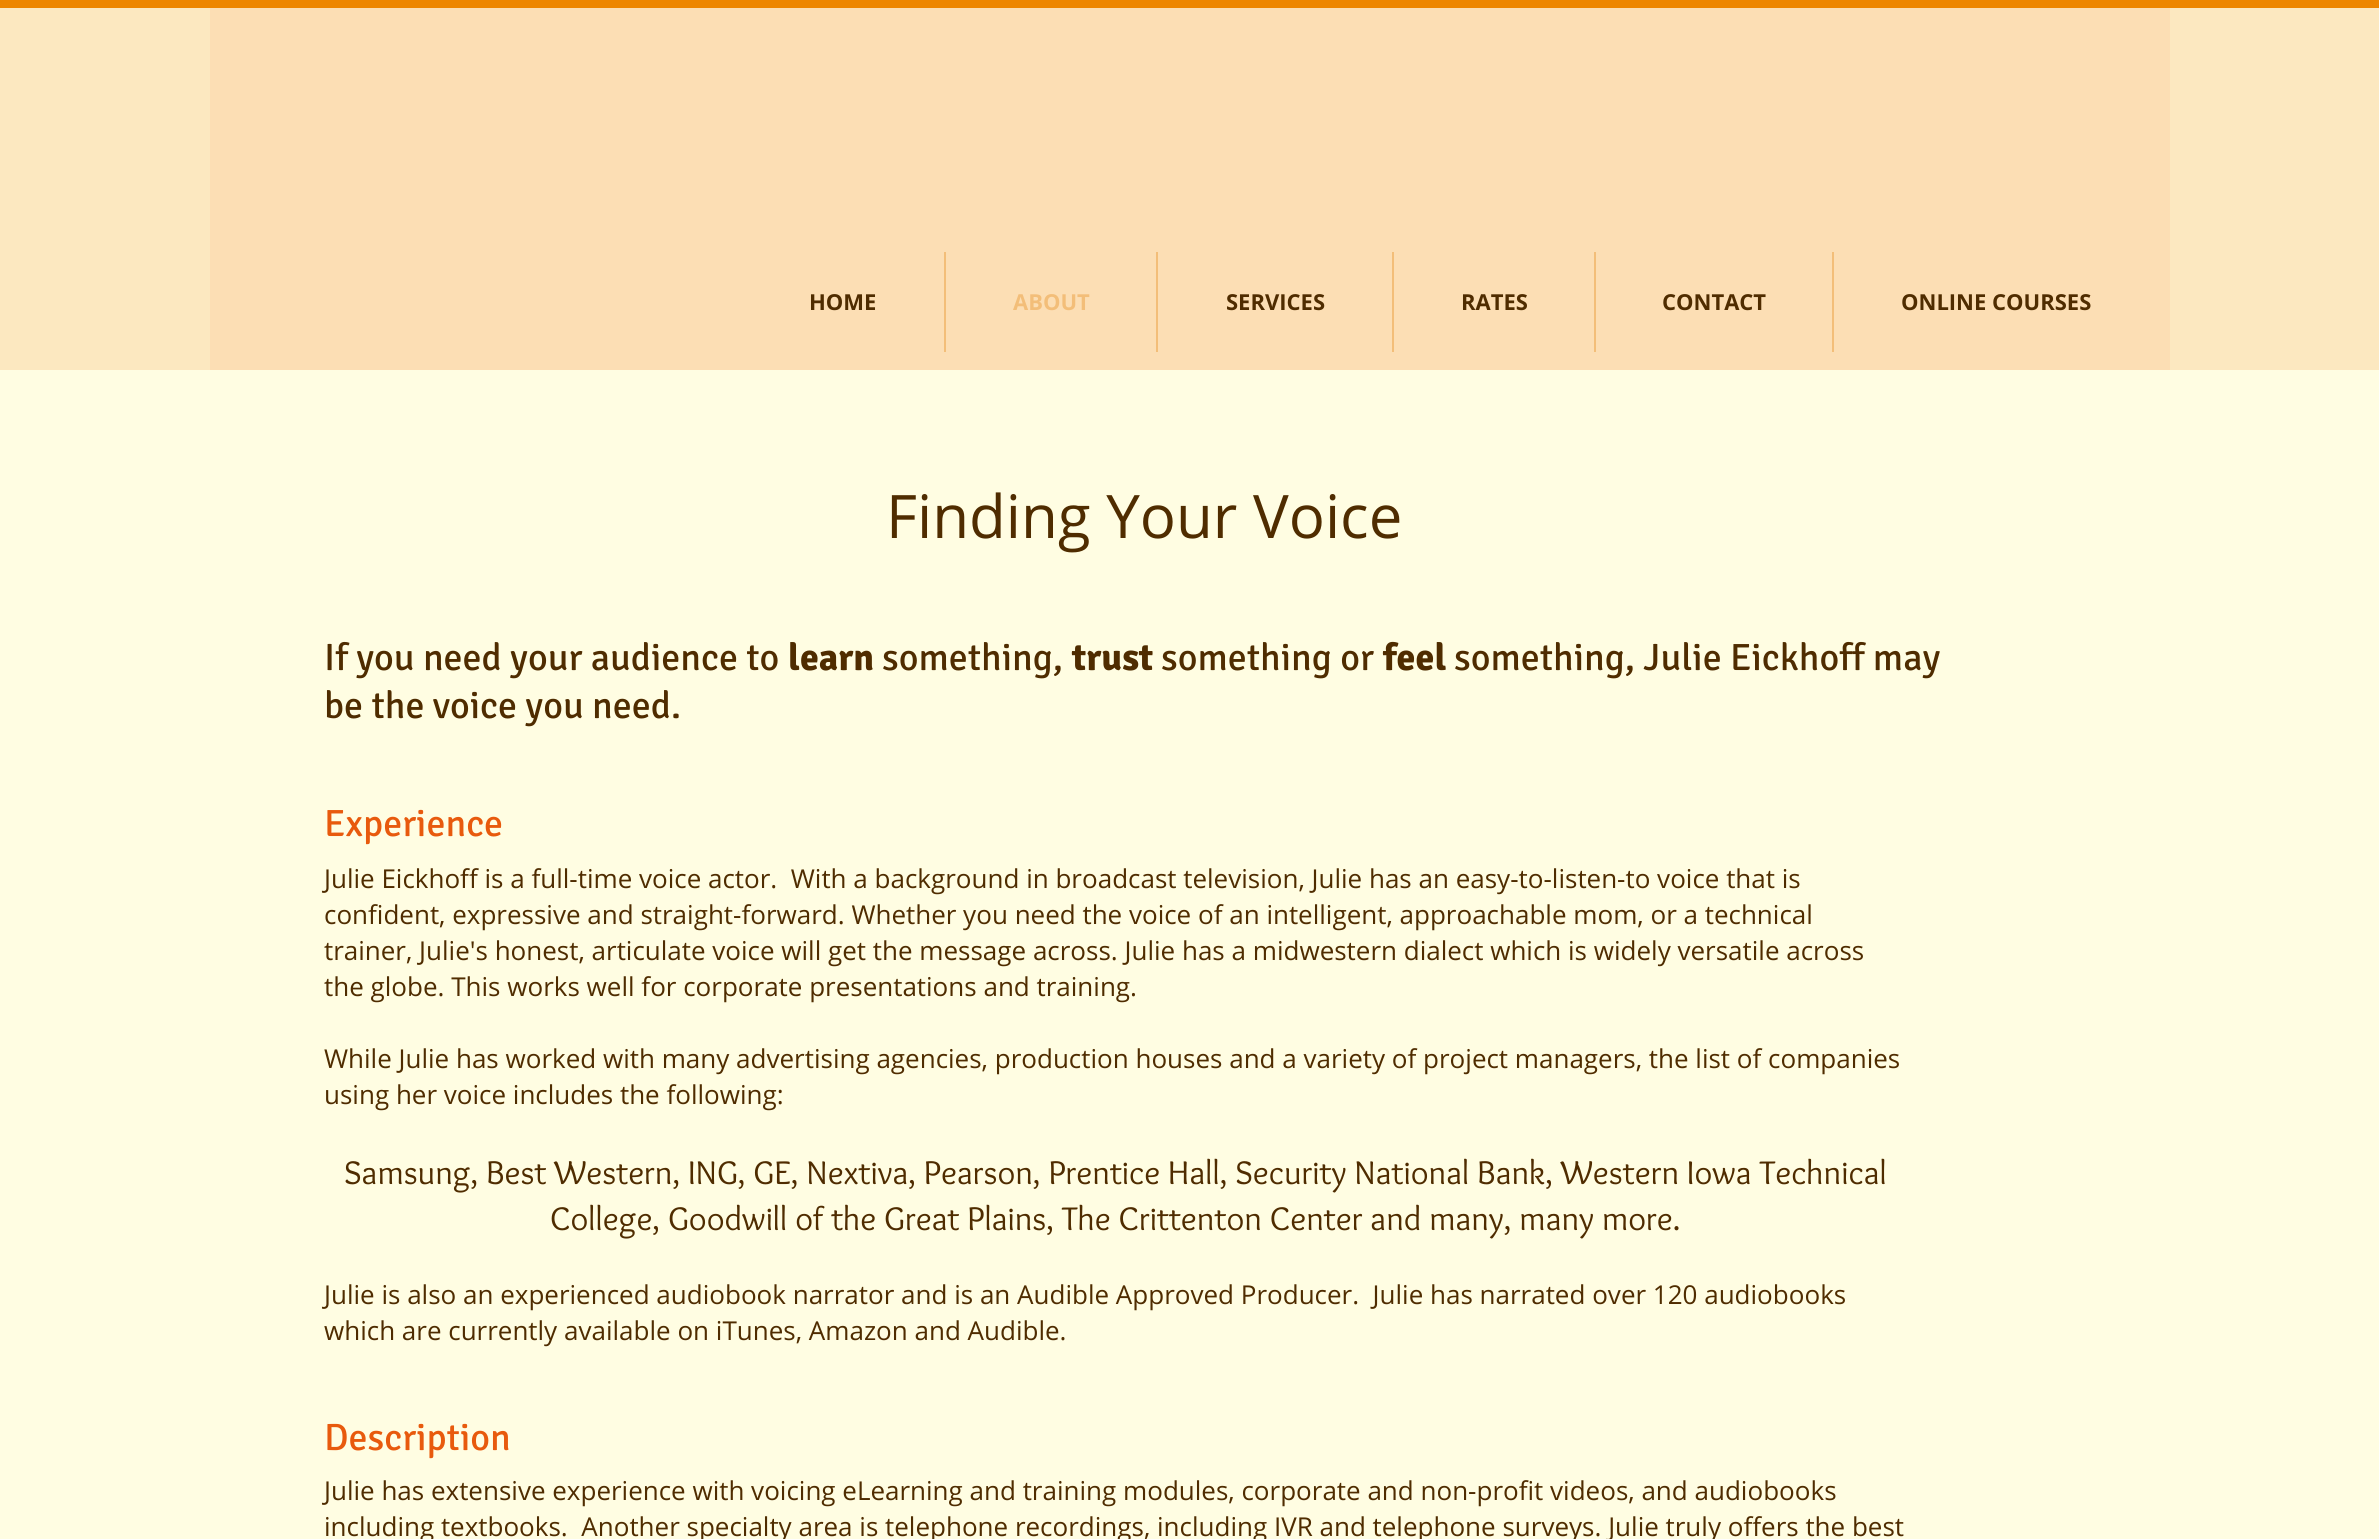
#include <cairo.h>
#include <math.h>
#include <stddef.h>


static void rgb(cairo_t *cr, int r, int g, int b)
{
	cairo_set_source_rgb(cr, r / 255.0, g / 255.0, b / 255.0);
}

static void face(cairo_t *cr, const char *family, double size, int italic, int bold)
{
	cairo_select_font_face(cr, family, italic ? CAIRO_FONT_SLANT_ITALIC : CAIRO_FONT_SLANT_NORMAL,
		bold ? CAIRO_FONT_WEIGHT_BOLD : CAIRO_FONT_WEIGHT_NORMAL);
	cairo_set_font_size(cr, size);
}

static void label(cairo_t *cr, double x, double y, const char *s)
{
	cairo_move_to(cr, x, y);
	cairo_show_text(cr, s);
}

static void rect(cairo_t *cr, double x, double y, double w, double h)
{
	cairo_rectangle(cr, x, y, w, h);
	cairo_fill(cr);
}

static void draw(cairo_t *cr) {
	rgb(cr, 255, 253, 226);
	cairo_paint(cr);
	rgb(cr, 252, 232, 192);
	rect(cr, 0, 8, 2379, 362);
	rgb(cr, 237, 134, 0);
	rect(cr, 0, 0, 2379, 8);
	rgb(cr, 252, 222, 180);
	rect(cr, 210, 8, 1960, 362);
	face(cr, "Open Sans", 22, 0, 1);
	rgb(cr, 79, 44, 0);
	label(cr, 809, 310, "HOME");
	rgb(cr, 243, 190, 121);
	rect(cr, 944, 252, 2, 100);
	label(cr, 1013, 310, "ABOUT");
	rect(cr, 1156, 252, 2, 100);
	rgb(cr, 79, 44, 0);
	label(cr, 1226, 310, "SERVICES");
	rgb(cr, 243, 190, 121);
	rect(cr, 1392, 252, 2, 100);
	rgb(cr, 79, 44, 0);
	label(cr, 1461, 310, "RATES");
	rgb(cr, 243, 190, 121);
	rect(cr, 1594, 252, 2, 100);
	rgb(cr, 79, 44, 0);
	label(cr, 1662, 310, "CONTACT");
	rgb(cr, 243, 190, 121);
	rect(cr, 1832, 252, 2, 100);
	rgb(cr, 79, 44, 0);
	label(cr, 1901, 310, "ONLINE COURSES");
	face(cr, "Open Sans", 60, 0, 0);
	label(cr, 886, 538, "Finding Your Voice");
	face(cr, "Signika", 38, 0, 0);
	label(cr, 324, 670, "If you need your audience to");
	face(cr, "Signika", 38, 0, 1);
	label(cr, 788, 670, "learn");
	face(cr, "Signika", 38, 0, 0);
	label(cr, 882, 670, "something,");
	face(cr, "Signika", 38, 0, 1);
	label(cr, 1072, 670, "trust");
	face(cr, "Signika", 38, 0, 0);
	label(cr, 1161, 670, "something or");
	face(cr, "Signika", 38, 0, 1);
	label(cr, 1383, 670, "feel");
	face(cr, "Signika", 38, 0, 0);
	label(cr, 1454, 670, "something, Julie Eickhoff may");
	label(cr, 324, 718, "be the voice you need.");
	rgb(cr, 232, 90, 13);
	label(cr, 324, 836, "Experience");
	face(cr, "Open Sans", 26, 0, 0);
	rgb(cr, 79, 44, 0);
	label(cr, 324, 888, "Julie Eickhoff is a full-time voice actor.  With a background in broadcast television, Julie has an easy-to-listen-to voice that is");
	label(cr, 324, 924, "confident, expressive and straight-forward. Whether you need the voice of an intelligent, approachable mom, or a technical");
	label(cr, 324, 960, "trainer, Julie's honest, articulate voice will get the message across. Julie has a midwestern dialect which is widely versatile across");
	label(cr, 324, 996, "the globe. This works well for corporate presentations and training.");
	label(cr, 324, 1068, "While Julie has worked with many advertising agencies, production houses and a variety of project managers, the list of companies");
	label(cr, 324, 1104, "using her voice includes the following:");
	face(cr, "Overlock", 34, 0, 0);
	label(cr, 344, 1184, "Samsung, Best Western, ING, GE, Nextiva, Pearson, Prentice Hall, Security National Bank, Western Iowa Technical");
	label(cr, 550, 1230, "College, Goodwill of the Great Plains, The Crittenton Center and many, many more.");
	face(cr, "Open Sans", 26, 0, 0);
	label(cr, 324, 1304, "Julie is also an experienced audiobook narrator and is an Audible Approved Producer.  Julie has narrated over 120 audiobooks");
	label(cr, 324, 1340, "which are currently available on iTunes, Amazon and Audible.");
	face(cr, "Signika", 38, 0, 0);
	rgb(cr, 232, 90, 13);
	label(cr, 324, 1450, "Description");
	face(cr, "Open Sans", 26, 0, 0);
	rgb(cr, 79, 44, 0);
	label(cr, 324, 1500, "Julie has extensive experience with voicing eLearning and training modules, corporate and non-profit videos, and audiobooks");
	label(cr, 324, 1536, "including textbooks.  Another specialty area is telephone recordings, including IVR and telephone surveys. Julie truly offers the best");
}

int main(void) {
	cairo_surface_t *surface = cairo_image_surface_create(CAIRO_FORMAT_RGB24, 2379, 1539);
	cairo_t *cr = cairo_create(surface);
	cairo_font_options_t *options = cairo_font_options_create();
	cairo_font_options_set_hint_metrics(options, CAIRO_HINT_METRICS_OFF);
	cairo_font_options_set_hint_style(options, CAIRO_HINT_STYLE_NONE);
	cairo_set_font_options(cr, options);
	cairo_set_miter_limit(cr, 4);
	draw(cr);
	cairo_surface_write_to_png(surface, "render.png");
	cairo_font_options_destroy(options);
	cairo_destroy(cr);
	cairo_surface_destroy(surface);
	return 0;
}
